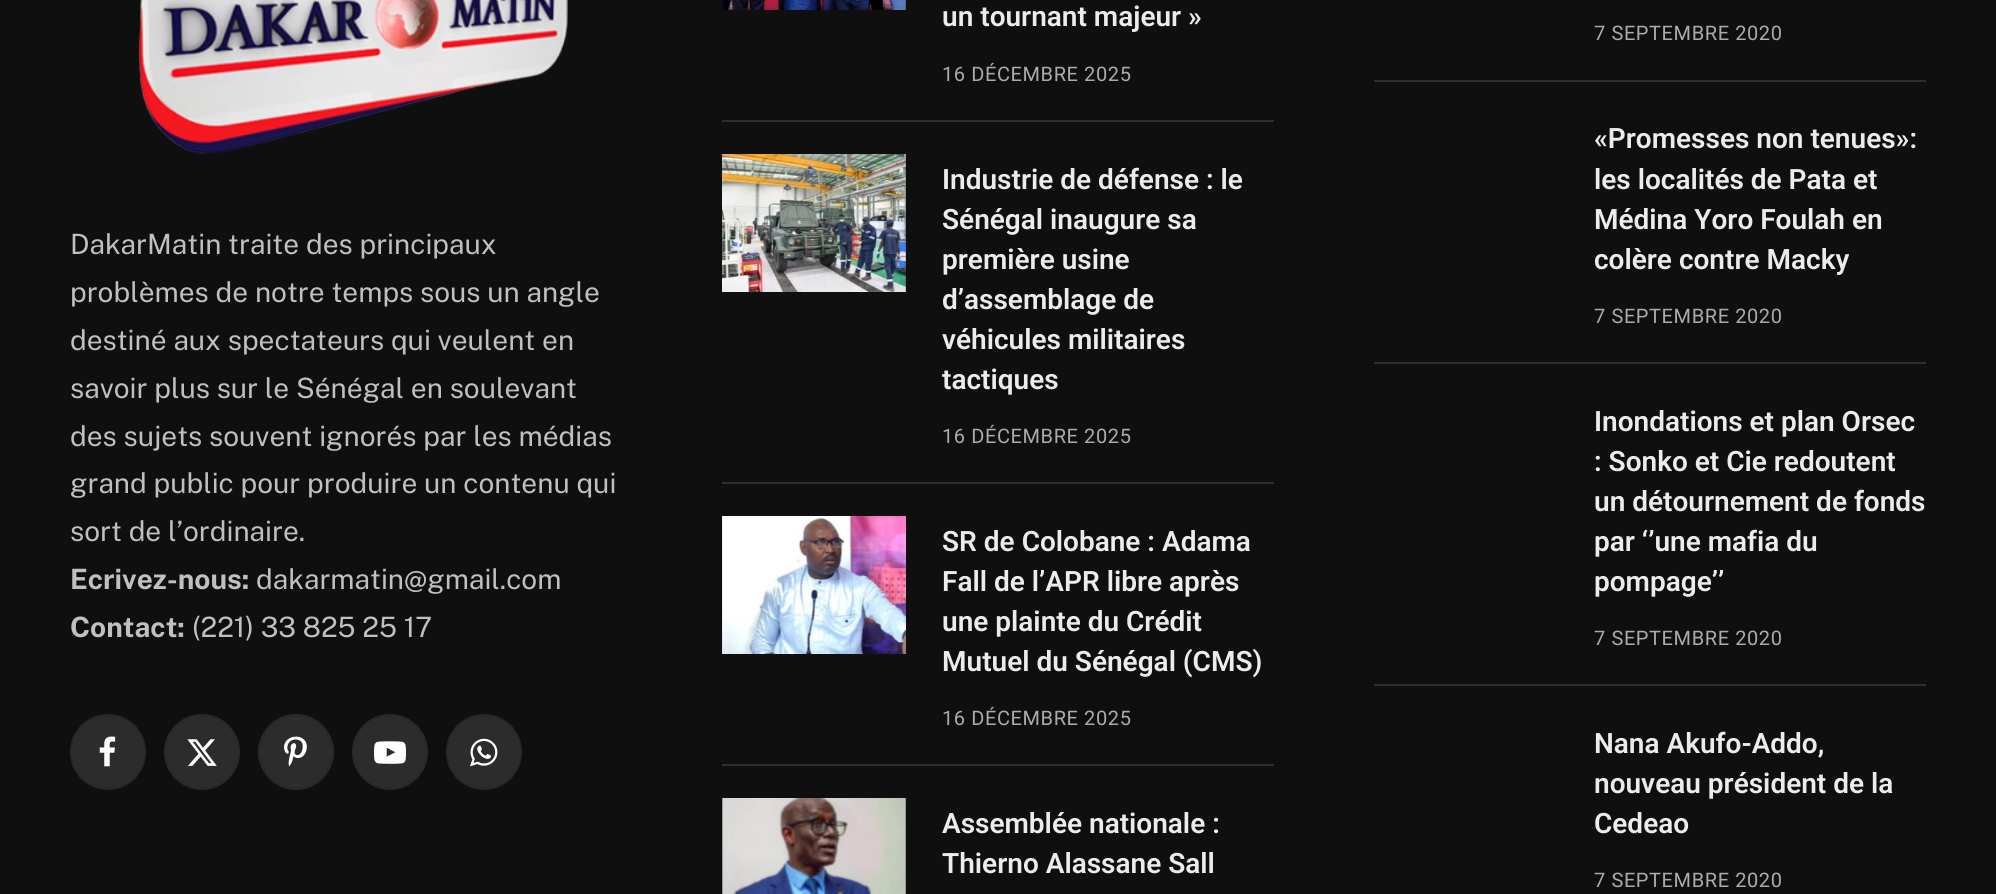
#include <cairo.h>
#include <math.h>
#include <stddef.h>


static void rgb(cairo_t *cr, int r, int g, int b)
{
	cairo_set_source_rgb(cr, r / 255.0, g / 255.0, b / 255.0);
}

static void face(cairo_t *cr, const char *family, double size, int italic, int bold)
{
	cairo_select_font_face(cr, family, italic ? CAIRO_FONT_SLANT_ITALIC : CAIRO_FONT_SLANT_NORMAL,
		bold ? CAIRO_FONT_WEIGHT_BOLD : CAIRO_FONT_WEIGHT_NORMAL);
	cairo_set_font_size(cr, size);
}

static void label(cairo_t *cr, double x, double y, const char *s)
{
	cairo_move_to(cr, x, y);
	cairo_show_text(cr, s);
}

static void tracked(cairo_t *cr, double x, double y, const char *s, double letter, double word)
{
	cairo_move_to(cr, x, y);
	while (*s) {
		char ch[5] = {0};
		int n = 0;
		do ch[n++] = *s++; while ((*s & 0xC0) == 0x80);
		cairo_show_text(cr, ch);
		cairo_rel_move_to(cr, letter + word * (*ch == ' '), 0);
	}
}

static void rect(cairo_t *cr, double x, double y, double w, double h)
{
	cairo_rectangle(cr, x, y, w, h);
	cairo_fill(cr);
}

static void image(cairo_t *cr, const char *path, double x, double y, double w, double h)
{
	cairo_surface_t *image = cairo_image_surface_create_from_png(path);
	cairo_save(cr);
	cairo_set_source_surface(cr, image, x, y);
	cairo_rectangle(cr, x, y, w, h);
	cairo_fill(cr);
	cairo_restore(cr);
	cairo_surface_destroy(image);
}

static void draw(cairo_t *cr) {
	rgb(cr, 15, 15, 15);
	cairo_paint(cr);
	image(cr, "image0.png", 138, 0, 430, 154);
	face(cr, "Public Sans", 28, 0, 0);
	rgb(cr, 192, 192, 192);
	label(cr, 70, 254, "DakarMatin traite des principaux");
	label(cr, 70, 302, "problèmes de notre temps sous un angle");
	label(cr, 70, 350, "destiné aux spectateurs qui veulent en");
	label(cr, 70, 398, "savoir plus sur le Sénégal en soulevant");
	label(cr, 70, 446, "des sujets souvent ignorés par les médias");
	label(cr, 70, 493, "grand public pour produire un contenu qui");
	label(cr, 70, 541, "sort de l’ordinaire.");
	face(cr, "Public Sans", 28, 0, 1);
	label(cr, 70, 589, "Ecrivez-nous:");
	face(cr, "Public Sans", 28, 0, 0);
	label(cr, 256, 589, "dakarmatin@gmail.com");
	face(cr, "Public Sans", 28, 0, 1);
	label(cr, 70, 637, "Contact:");
	face(cr, "Public Sans", 28, 0, 0);
	label(cr, 192, 637, "(221) 33 825 25 17");
	rgb(cr, 44, 44, 44);
	cairo_new_path(cr);
	cairo_arc(cr, 108, 752, 38, 0, 2 * M_PI);
	cairo_fill(cr);
	cairo_arc(cr, 108, 752, 37, 0, 2 * M_PI);
	cairo_set_source_rgba(cr, 0, 0, 0, 0.09);
	cairo_stroke(cr);
	image(cr, "image1.png", 99, 736, 17, 31);
	rgb(cr, 44, 44, 44);
	cairo_arc(cr, 202, 752, 38, 0, 2 * M_PI);
	cairo_fill(cr);
	cairo_arc(cr, 202, 752, 37, 0, 2 * M_PI);
	cairo_set_source_rgba(cr, 0, 0, 0, 0.09);
	cairo_stroke(cr);
	image(cr, "image2.png", 187, 739, 30, 27);
	rgb(cr, 44, 44, 44);
	cairo_arc(cr, 296, 752, 38, 0, 2 * M_PI);
	cairo_fill(cr);
	cairo_arc(cr, 296, 752, 37, 0, 2 * M_PI);
	cairo_set_source_rgba(cr, 0, 0, 0, 0.09);
	cairo_stroke(cr);
	image(cr, "image3.png", 284, 736, 23, 31);
	rgb(cr, 44, 44, 44);
	cairo_arc(cr, 390, 752, 38, 0, 2 * M_PI);
	cairo_fill(cr);
	cairo_arc(cr, 390, 752, 37, 0, 2 * M_PI);
	cairo_set_source_rgba(cr, 0, 0, 0, 0.09);
	cairo_stroke(cr);
	image(cr, "image4.png", 374, 741, 32, 23);
	rgb(cr, 44, 44, 44);
	cairo_arc(cr, 484, 752, 38, 0, 2 * M_PI);
	cairo_fill(cr);
	cairo_arc(cr, 484, 752, 37, 0, 2 * M_PI);
	cairo_set_source_rgba(cr, 0, 0, 0, 0.09);
	cairo_stroke(cr);
	image(cr, "image5.png", 470, 738, 28, 29);
	image(cr, "image6.png", 722, 0, 184, 10);
	face(cr, "Roboto SemiBold", 28, 0, 0);
	rgb(cr, 236, 236, 236);
	label(cr, 942, 26, "un tournant majeur »");
	face(cr, "Roboto", 20, 0, 0);
	rgb(cr, 171, 171, 171);
	tracked(cr, 942, 81, "16 DÉCEMBRE 2025", 0.6, 0);
	rgb(cr, 46, 46, 46);
	rect(cr, 722, 120, 552, 2);
	image(cr, "image7.png", 722, 154, 184, 138);
	face(cr, "Roboto SemiBold", 28, 0, 0);
	rgb(cr, 236, 236, 236);
	label(cr, 942, 189, "Industrie de défense : le");
	label(cr, 942, 229, "Sénégal inaugure sa");
	label(cr, 942, 269, "première usine");
	label(cr, 942, 309, "d’assemblage de");
	label(cr, 942, 349, "véhicules militaires");
	label(cr, 942, 389, "tactiques");
	face(cr, "Roboto", 20, 0, 0);
	rgb(cr, 171, 171, 171);
	tracked(cr, 942, 443, "16 DÉCEMBRE 2025", 0.6, 0);
	rgb(cr, 46, 46, 46);
	rect(cr, 722, 482, 552, 2);
	image(cr, "image8.png", 722, 516, 184, 138);
	face(cr, "Roboto SemiBold", 28, 0, 0);
	rgb(cr, 236, 236, 236);
	label(cr, 942, 551, "SR de Colobane : Adama");
	label(cr, 942, 591, "Fall de l’APR libre après");
	label(cr, 942, 631, "une plainte du Crédit");
	label(cr, 942, 671, "Mutuel du Sénégal (CMS)");
	face(cr, "Roboto", 20, 0, 0);
	rgb(cr, 171, 171, 171);
	tracked(cr, 942, 725, "16 DÉCEMBRE 2025", 0.6, 0);
	rgb(cr, 46, 46, 46);
	rect(cr, 722, 764, 552, 2);
	image(cr, "image9.png", 722, 798, 184, 96);
	face(cr, "Roboto SemiBold", 28, 0, 0);
	rgb(cr, 236, 236, 236);
	label(cr, 942, 833, "Assemblée nationale :");
	label(cr, 942, 873, "Thierno Alassane Sall");
	face(cr, "Roboto", 20, 0, 0);
	rgb(cr, 171, 171, 171);
	tracked(cr, 1594, 40, "7 SEPTEMBRE 2020", 0.6, 0);
	rgb(cr, 46, 46, 46);
	rect(cr, 1374, 80, 552, 2);
	face(cr, "Roboto SemiBold", 28, 0, 0);
	rgb(cr, 236, 236, 236);
	label(cr, 1594, 148, "«Promesses non tenues»:");
	label(cr, 1594, 189, "les localités de Pata et");
	label(cr, 1594, 229, "Médina Yoro Foulah en");
	label(cr, 1594, 269, "colère contre Macky");
	face(cr, "Roboto", 20, 0, 0);
	rgb(cr, 171, 171, 171);
	tracked(cr, 1594, 323, "7 SEPTEMBRE 2020", 0.6, 0);
	rgb(cr, 46, 46, 46);
	rect(cr, 1374, 362, 552, 2);
	face(cr, "Roboto SemiBold", 28, 0, 0);
	rgb(cr, 236, 236, 236);
	label(cr, 1594, 431, "Inondations et plan Orsec");
	label(cr, 1594, 471, ": Sonko et Cie redoutent");
	label(cr, 1594, 511, "un détournement de fonds");
	label(cr, 1594, 551, "par ‘’une mafia du");
	label(cr, 1594, 591, "pompage’’");
	face(cr, "Roboto", 20, 0, 0);
	rgb(cr, 171, 171, 171);
	tracked(cr, 1594, 645, "7 SEPTEMBRE 2020", 0.6, 0);
	rgb(cr, 46, 46, 46);
	rect(cr, 1374, 684, 552, 2);
	face(cr, "Roboto SemiBold", 28, 0, 0);
	rgb(cr, 236, 236, 236);
	label(cr, 1594, 753, "Nana Akufo-Addo,");
	label(cr, 1594, 793, "nouveau président de la");
	label(cr, 1594, 833, "Cedeao");
	face(cr, "Roboto", 20, 0, 0);
	rgb(cr, 171, 171, 171);
	tracked(cr, 1594, 887, "7 SEPTEMBRE 2020", 0.6, 0);
}

int main(void) {
	cairo_surface_t *surface = cairo_image_surface_create(CAIRO_FORMAT_RGB24, 1996, 894);
	cairo_t *cr = cairo_create(surface);
	cairo_font_options_t *options = cairo_font_options_create();
	cairo_font_options_set_hint_metrics(options, CAIRO_HINT_METRICS_OFF);
	cairo_font_options_set_hint_style(options, CAIRO_HINT_STYLE_NONE);
	cairo_set_font_options(cr, options);
	cairo_set_miter_limit(cr, 4);
	draw(cr);
	cairo_surface_write_to_png(surface, "render.png");
	cairo_font_options_destroy(options);
	cairo_destroy(cr);
	cairo_surface_destroy(surface);
	return 0;
}
